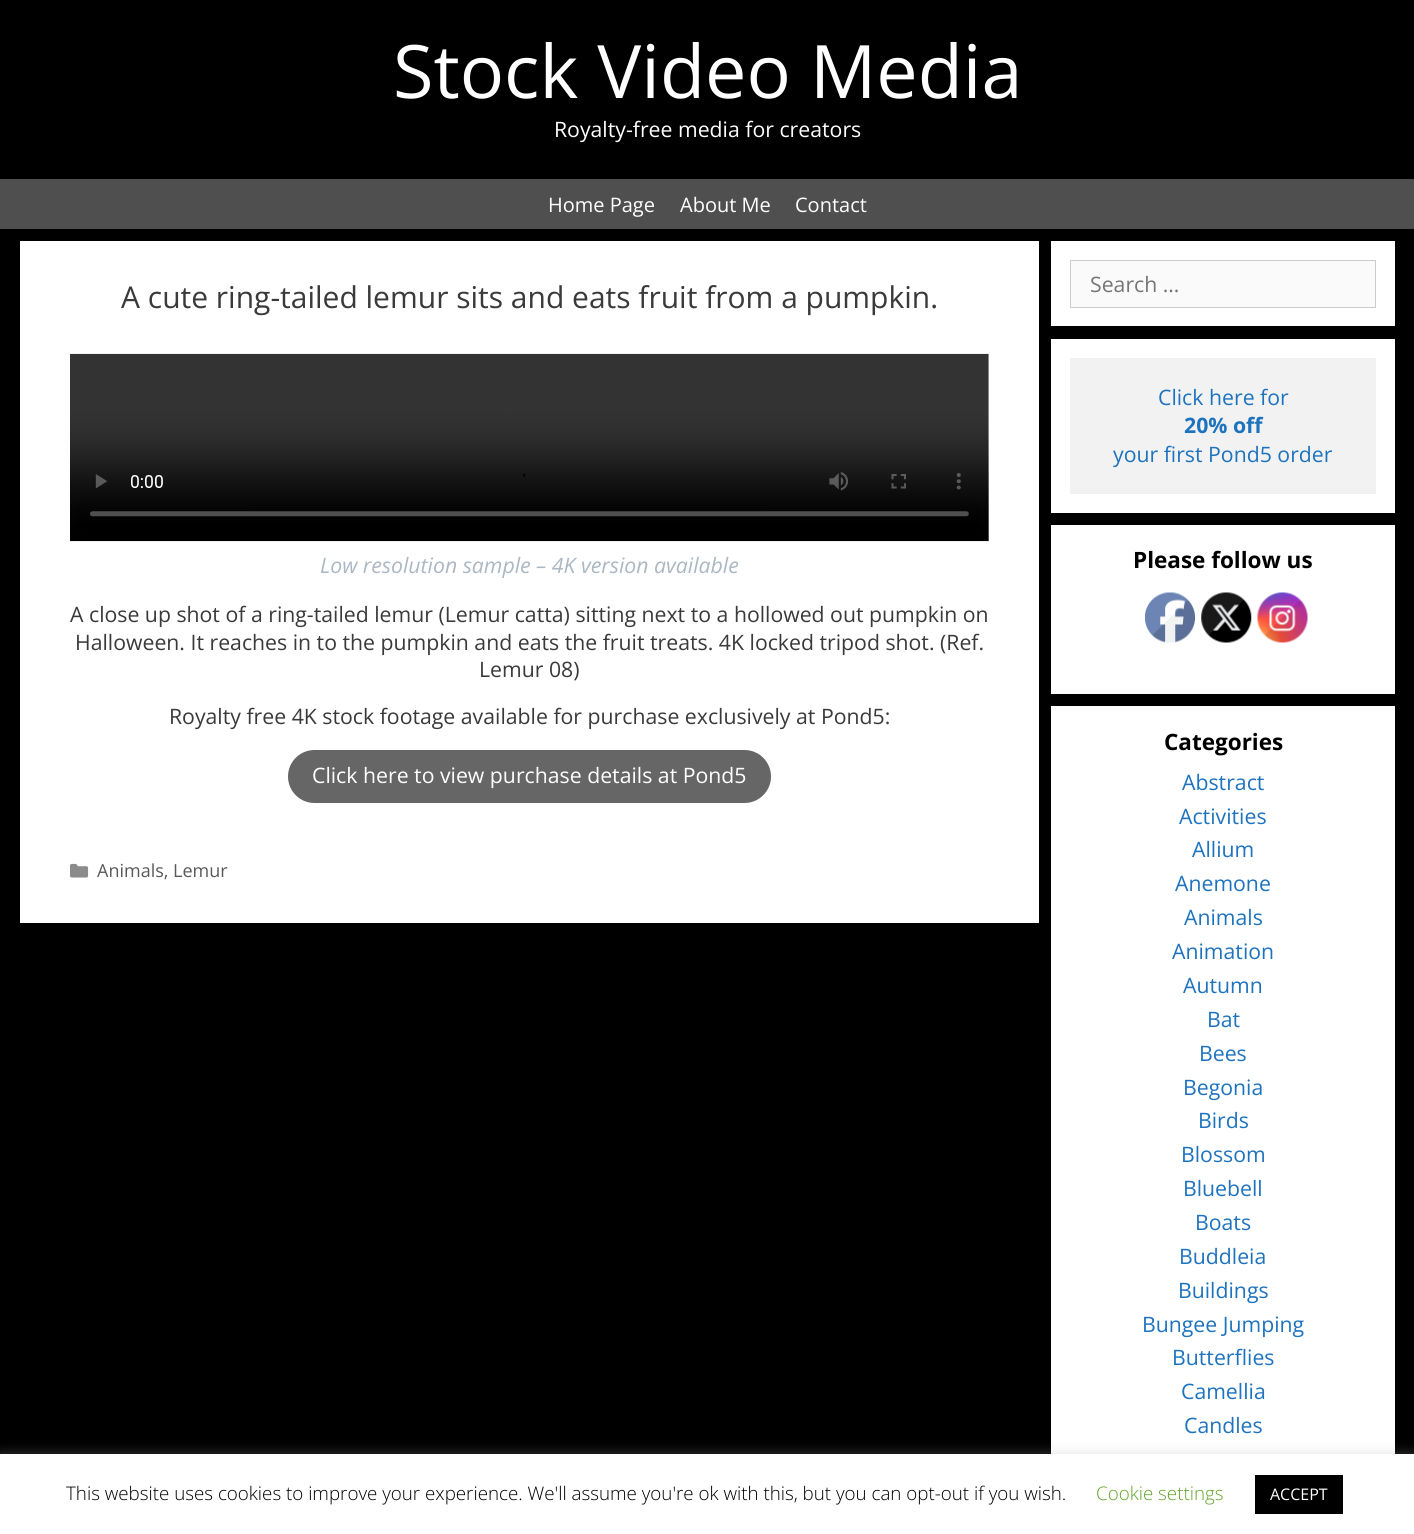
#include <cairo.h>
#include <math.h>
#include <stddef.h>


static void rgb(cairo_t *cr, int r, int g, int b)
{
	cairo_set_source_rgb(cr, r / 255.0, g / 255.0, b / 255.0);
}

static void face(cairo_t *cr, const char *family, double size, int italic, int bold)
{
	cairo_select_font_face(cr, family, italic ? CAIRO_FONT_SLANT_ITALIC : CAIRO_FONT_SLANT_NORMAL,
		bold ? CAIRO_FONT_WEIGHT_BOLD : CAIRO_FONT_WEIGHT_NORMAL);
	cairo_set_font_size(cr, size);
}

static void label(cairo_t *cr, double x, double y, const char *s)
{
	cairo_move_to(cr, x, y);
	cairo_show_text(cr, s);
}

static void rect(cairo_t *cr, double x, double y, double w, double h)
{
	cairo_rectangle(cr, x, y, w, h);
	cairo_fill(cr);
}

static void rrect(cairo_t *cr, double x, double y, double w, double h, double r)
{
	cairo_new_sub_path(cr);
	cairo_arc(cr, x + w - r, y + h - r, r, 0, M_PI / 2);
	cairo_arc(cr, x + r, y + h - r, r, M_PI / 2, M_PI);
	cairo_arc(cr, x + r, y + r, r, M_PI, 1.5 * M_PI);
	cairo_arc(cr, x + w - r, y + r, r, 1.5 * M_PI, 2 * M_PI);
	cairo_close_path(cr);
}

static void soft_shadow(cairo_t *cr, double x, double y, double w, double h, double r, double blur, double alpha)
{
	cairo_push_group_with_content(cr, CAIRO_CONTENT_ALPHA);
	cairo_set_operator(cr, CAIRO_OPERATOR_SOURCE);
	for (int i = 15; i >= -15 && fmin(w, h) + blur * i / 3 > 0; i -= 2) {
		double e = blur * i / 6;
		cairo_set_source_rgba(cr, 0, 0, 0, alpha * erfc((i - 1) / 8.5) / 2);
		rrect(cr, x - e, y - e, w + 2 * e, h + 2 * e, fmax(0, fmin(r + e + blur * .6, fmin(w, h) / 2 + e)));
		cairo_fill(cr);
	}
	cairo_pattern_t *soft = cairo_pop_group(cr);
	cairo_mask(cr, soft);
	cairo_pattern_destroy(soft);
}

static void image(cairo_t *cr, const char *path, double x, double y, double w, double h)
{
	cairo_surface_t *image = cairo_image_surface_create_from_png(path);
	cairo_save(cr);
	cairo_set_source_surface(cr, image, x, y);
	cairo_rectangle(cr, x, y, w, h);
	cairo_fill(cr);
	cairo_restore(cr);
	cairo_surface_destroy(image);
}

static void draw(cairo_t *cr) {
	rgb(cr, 0, 0, 0);
	cairo_paint(cr);
	face(cr, "Open Sans", 73.75, 0, 0);
	rgb(cr, 255, 255, 255);
	label(cr, 393, 98, "Stock Video Media");
	face(cr, "Open Sans", 21.25, 0, 0);
	label(cr, 554, 137, "Royalty-free media for creators");
	rgb(cr, 79, 79, 79);
	rect(cr, 0, 179, 1414, 50);
	face(cr, "Open Sans", 20, 0, 0);
	rgb(cr, 255, 255, 255);
	label(cr, 548, 212, "Home Page");
	label(cr, 680, 212, "About Me");
	label(cr, 795, 212, "Contact");
	rect(cr, 20, 241, 1019, 682);
	face(cr, "Open Sans", 30, 0, 0);
	rgb(cr, 58, 58, 58);
	label(cr, 121, 308, "A cute ring-tailed lemur sits and eats fruit from a pumpkin.");
	image(cr, "image0.png", 70, 353, 919, 189);
	face(cr, "Open Sans", 21.25, 1, 0);
	rgb(cr, 171, 184, 195);
	label(cr, 320, 573, "Low resolution sample – 4K version available");
	face(cr, "Open Sans", 21.25, 0, 0);
	rgb(cr, 58, 58, 58);
	label(cr, 70, 622, "A close up shot of a ring-tailed lemur (Lemur catta) sitting next to a hollowed out pumpkin on");
	label(cr, 75, 650, "Halloween. It reaches in to the pumpkin and eats the fruit treats. 4K locked tripod shot. (Ref.");
	label(cr, 479, 677, "Lemur 08)");
	label(cr, 169, 724, "Royalty free 4K stock footage available for purchase exclusively at Pond5:");
	rgb(cr, 102, 102, 102);
	rrect(cr, 288, 750, 483, 53, 26.5);
	cairo_fill(cr);
	rgb(cr, 255, 255, 255);
	label(cr, 312, 783, "Click here to view purchase details at Pond5");
	image(cr, "image1.png", 70, 863, 19, 15);
	face(cr, "Open Sans", 18, 0, 0);
	rgb(cr, 89, 89, 89);
	label(cr, 97, 877, "Animals, Lemur");
	rgb(cr, 255, 255, 255);
	rect(cr, 1051, 241, 344, 85);
	rgb(cr, 250, 250, 250);
	cairo_rectangle(cr, 1070.5, 260.5, 305, 47);
	cairo_fill_preserve(cr);
	rgb(cr, 204, 204, 204);
	cairo_set_line_width(cr, 1);
	cairo_stroke(cr);
	face(cr, "Open Sans", 21.25, 0, 0);
	rgb(cr, 117, 117, 117);
	label(cr, 1090, 292, "Search …");
	rgb(cr, 255, 255, 255);
	rect(cr, 1051, 339, 344, 174);
	rgb(cr, 242, 242, 242);
	rect(cr, 1070, 358, 306, 136);
	rgb(cr, 30, 115, 190);
	label(cr, 1158, 405, "Click here for");
	face(cr, "Open Sans", 21.25, 0, 1);
	label(cr, 1184, 433, "20% off");
	face(cr, "Open Sans", 21.25, 0, 0);
	label(cr, 1113, 462, "your first Pond5 order");
	rgb(cr, 255, 255, 255);
	rect(cr, 1051, 525, 344, 169);
	face(cr, "Open Sans", 22.5, 0, 1);
	rgb(cr, 0, 0, 0);
	label(cr, 1133, 568, "Please follow us");
	image(cr, "image2.png", 1145, 592, 50, 51);
	image(cr, "image3.png", 1201, 592, 51, 51);
	image(cr, "image4.png", 1257, 592, 51, 51);
	rgb(cr, 255, 255, 255);
	rect(cr, 1051, 706, 344, 748);
	rgb(cr, 0, 0, 0);
	label(cr, 1164, 750, "Categories");
	face(cr, "Open Sans", 21.25, 0, 0);
	rgb(cr, 30, 115, 190);
	label(cr, 1182, 790, "Abstract");
	label(cr, 1179, 824, "Activities");
	label(cr, 1192, 857, "Allium");
	label(cr, 1175, 891, "Anemone");
	label(cr, 1184, 925, "Animals");
	label(cr, 1172, 959, "Animation");
	label(cr, 1183, 993, "Autumn");
	label(cr, 1207, 1027, "Bat");
	label(cr, 1199, 1061, "Bees");
	label(cr, 1183, 1095, "Begonia");
	label(cr, 1198, 1128, "Birds");
	label(cr, 1181, 1162, "Blossom");
	label(cr, 1183, 1196, "Bluebell");
	label(cr, 1195, 1230, "Boats");
	label(cr, 1179, 1264, "Buddleia");
	label(cr, 1178, 1298, "Buildings");
	label(cr, 1142, 1332, "Bungee Jumping");
	label(cr, 1172, 1365, "Butterflies");
	label(cr, 1181, 1399, "Camellia");
	label(cr, 1184, 1433, "Candles");
	rgb(cr, 172, 171, 171);
	soft_shadow(cr, 0, 1453, 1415, 81, 0, 6, 0.3);
	rgb(cr, 255, 255, 255);
	rect(cr, 0, 1454, 1414, 80);
	face(cr, "Open Sans Light", 18.75, 0, 0);
	rgb(cr, 0, 0, 0);
	label(cr, 66, 1500, "This website uses cookies to improve your experience. We'll assume you're ok with this, but you can opt-out if you wish.");
	rgb(cr, 98, 163, 41);
	label(cr, 1096, 1500, "Cookie settings");
	rgb(cr, 0, 0, 0);
	rect(cr, 1255, 1475, 88, 39);
	face(cr, "Open Sans", 16, 0, 0);
	rgb(cr, 255, 255, 255);
	label(cr, 1270, 1500, "ACCEPT");
}

int main(void) {
	cairo_surface_t *surface = cairo_image_surface_create(CAIRO_FORMAT_RGB24, 1414, 1534);
	cairo_t *cr = cairo_create(surface);
	cairo_font_options_t *options = cairo_font_options_create();
	cairo_font_options_set_hint_metrics(options, CAIRO_HINT_METRICS_OFF);
	cairo_font_options_set_hint_style(options, CAIRO_HINT_STYLE_NONE);
	cairo_set_font_options(cr, options);
	cairo_set_miter_limit(cr, 4);
	draw(cr);
	cairo_surface_write_to_png(surface, "render.png");
	cairo_font_options_destroy(options);
	cairo_destroy(cr);
	cairo_surface_destroy(surface);
	return 0;
}
